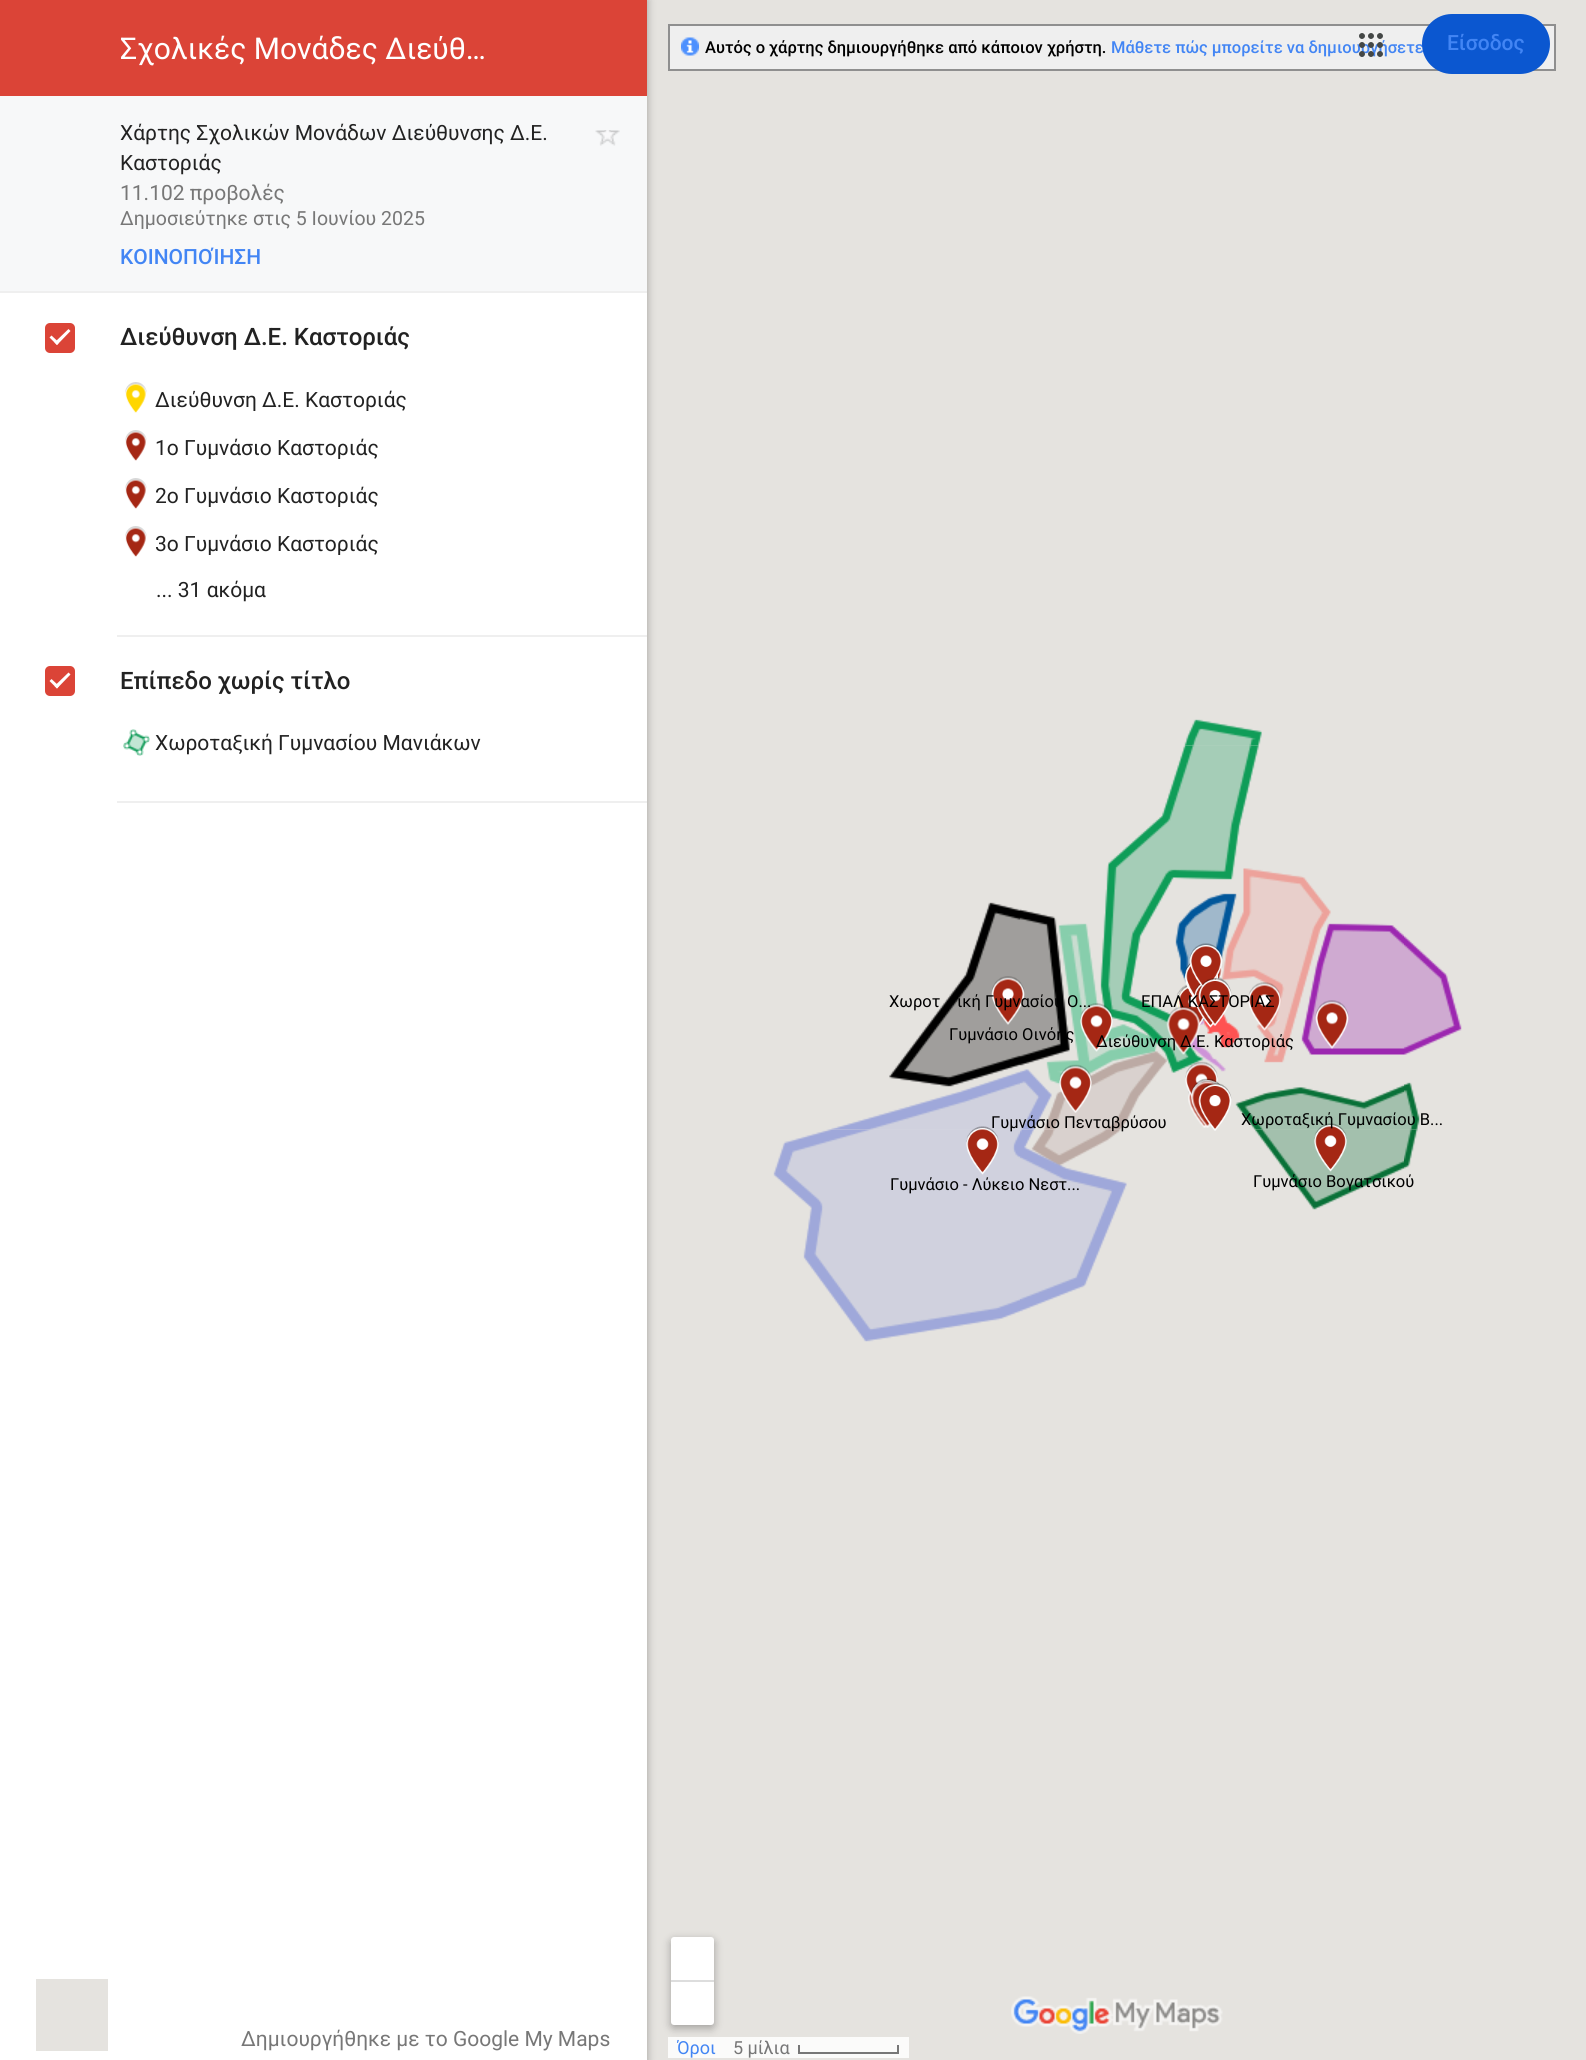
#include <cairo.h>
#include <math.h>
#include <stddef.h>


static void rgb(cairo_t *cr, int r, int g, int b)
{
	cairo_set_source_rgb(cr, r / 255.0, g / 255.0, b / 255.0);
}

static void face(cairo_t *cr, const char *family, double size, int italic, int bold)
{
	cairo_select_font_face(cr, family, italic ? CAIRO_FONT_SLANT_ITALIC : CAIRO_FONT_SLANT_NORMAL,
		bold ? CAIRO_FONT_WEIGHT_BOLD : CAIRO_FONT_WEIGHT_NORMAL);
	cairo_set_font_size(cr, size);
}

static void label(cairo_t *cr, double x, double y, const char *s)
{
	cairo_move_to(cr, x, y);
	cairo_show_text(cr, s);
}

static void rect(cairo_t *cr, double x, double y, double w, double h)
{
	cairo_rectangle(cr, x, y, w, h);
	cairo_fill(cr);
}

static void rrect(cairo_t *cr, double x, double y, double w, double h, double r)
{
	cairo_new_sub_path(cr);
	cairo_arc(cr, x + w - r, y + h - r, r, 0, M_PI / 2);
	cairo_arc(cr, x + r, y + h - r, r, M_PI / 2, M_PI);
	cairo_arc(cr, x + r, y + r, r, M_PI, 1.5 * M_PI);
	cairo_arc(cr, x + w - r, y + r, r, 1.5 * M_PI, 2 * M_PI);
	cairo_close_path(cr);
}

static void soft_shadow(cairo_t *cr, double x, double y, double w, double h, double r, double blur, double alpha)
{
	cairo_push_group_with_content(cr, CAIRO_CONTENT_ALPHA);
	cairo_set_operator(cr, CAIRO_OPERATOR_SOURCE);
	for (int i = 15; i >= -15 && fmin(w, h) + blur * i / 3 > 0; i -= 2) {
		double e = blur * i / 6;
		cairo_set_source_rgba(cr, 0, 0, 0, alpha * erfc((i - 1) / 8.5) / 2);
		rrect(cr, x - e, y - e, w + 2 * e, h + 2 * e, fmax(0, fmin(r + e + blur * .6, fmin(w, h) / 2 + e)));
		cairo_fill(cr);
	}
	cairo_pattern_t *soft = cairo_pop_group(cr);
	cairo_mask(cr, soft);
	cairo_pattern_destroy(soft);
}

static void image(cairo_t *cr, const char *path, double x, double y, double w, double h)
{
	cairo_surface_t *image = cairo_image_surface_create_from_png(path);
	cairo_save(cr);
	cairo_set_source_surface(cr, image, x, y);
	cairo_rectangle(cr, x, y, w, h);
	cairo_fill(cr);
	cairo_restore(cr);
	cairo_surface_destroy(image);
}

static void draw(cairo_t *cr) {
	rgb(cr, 229, 227, 223);
	cairo_paint(cr);
	rgb(cr, 0, 0, 0);
	soft_shadow(cr, 0, 0, 647, 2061, 0, 4.5, 0.3);
	rgb(cr, 255, 255, 255);
	rect(cr, 0, 293, 647, 1767);
	rgb(cr, 219, 68, 55);
	rect(cr, 0, 0, 647, 96);
	face(cr, "Roboto", 30, 0, 0);
	rgb(cr, 255, 255, 255);
	label(cr, 120, 59, "Σχολικές Μονάδες Διεύθ…");
	rgb(cr, 247, 248, 249);
	rect(cr, 0, 96, 647, 195);
	rgb(cr, 239, 239, 239);
	rect(cr, 0, 291, 647, 2);
	face(cr, "Roboto", 21, 0, 0);
	rgb(cr, 34, 34, 34);
	label(cr, 120, 140, "Χάρτης Σχολικών Μονάδων Διεύθυνσης Δ.Ε.");
	label(cr, 120, 170, "Καστοριάς");
	image(cr, "image0.png", 595, 130, 25, 16);
	rgb(cr, 119, 119, 119);
	label(cr, 120, 200, "11.102 προβολές");
	face(cr, "Roboto", 19.5, 0, 0);
	label(cr, 120, 225, "Δημοσιεύτηκε στις 5 Ιουνίου 2025");
	face(cr, "Roboto Medium", 21, 0, 0);
	rgb(cr, 66, 133, 244);
	label(cr, 120, 264, "ΚΟΙΝΟΠΟΊΗΣΗ");
	rgb(cr, 219, 68, 55);
	rrect(cr, 45, 323, 30, 30, 5);
	cairo_fill(cr);
	rgb(cr, 255, 255, 255);
	cairo_new_path(cr);
	cairo_move_to(cr, 49.5, 337.5);
	cairo_line_to(cr, 51.5, 335.5);
	cairo_line_to(cr, 59, 342.5);
	cairo_line_to(cr, 57, 345);
	cairo_close_path(cr);
	cairo_fill(cr);
	cairo_new_path(cr);
	cairo_move_to(cr, 54.5, 342.5);
	cairo_line_to(cr, 68.5, 329);
	cairo_line_to(cr, 70.5, 331);
	cairo_line_to(cr, 57, 345);
	cairo_close_path(cr);
	cairo_fill(cr);
	face(cr, "Roboto Medium", 24, 0, 0);
	rgb(cr, 34, 34, 34);
	label(cr, 120, 345, "Διεύθυνση Δ.Ε. Καστοριάς");
	image(cr, "image1.png", 125, 382, 22, 31);
	cairo_save(cr);
	cairo_rectangle(cr, 155, 387, 252, 24);
	cairo_clip(cr);
	face(cr, "Roboto", 21, 0, 0);
	label(cr, 155, 407, "Διεύθυνση Δ.Ε. Καστοριάς");
	cairo_restore(cr);
	image(cr, "image2.png", 125, 430, 22, 31);
	cairo_save(cr);
	cairo_rectangle(cr, 155, 435, 223, 24);
	cairo_clip(cr);
	face(cr, "Roboto", 21, 0, 0);
	label(cr, 155, 455, "1ο Γυμνάσιο Καστοριάς");
	cairo_restore(cr);
	image(cr, "image2.png", 125, 478, 22, 31);
	cairo_save(cr);
	cairo_rectangle(cr, 155, 483, 223, 24);
	cairo_clip(cr);
	face(cr, "Roboto", 21, 0, 0);
	label(cr, 155, 503, "2ο Γυμνάσιο Καστοριάς");
	cairo_restore(cr);
	image(cr, "image2.png", 125, 526, 22, 31);
	cairo_save(cr);
	cairo_rectangle(cr, 155, 531, 223, 24);
	cairo_clip(cr);
	face(cr, "Roboto", 21, 0, 0);
	label(cr, 155, 551, "3ο Γυμνάσιο Καστοριάς");
	cairo_restore(cr);
	face(cr, "Roboto", 21, 0, 0);
	label(cr, 156, 597, "... 31 ακόμα");
	rgb(cr, 239, 239, 239);
	rect(cr, 117, 635, 530, 2);
	rgb(cr, 219, 68, 55);
	rrect(cr, 45, 666, 30, 30, 5);
	cairo_fill(cr);
	rgb(cr, 255, 255, 255);
	cairo_new_path(cr);
	cairo_move_to(cr, 49.5, 681);
	cairo_line_to(cr, 51.5, 679);
	cairo_line_to(cr, 59, 686);
	cairo_line_to(cr, 57, 688.5);
	cairo_close_path(cr);
	cairo_fill(cr);
	cairo_new_path(cr);
	cairo_move_to(cr, 54.5, 686);
	cairo_line_to(cr, 68.5, 672.5);
	cairo_line_to(cr, 70.5, 674.5);
	cairo_line_to(cr, 57, 688.5);
	cairo_close_path(cr);
	cairo_fill(cr);
	face(cr, "Roboto Medium", 24, 0, 0);
	rgb(cr, 34, 34, 34);
	label(cr, 120, 689, "Επίπεδο χωρίς τίτλο");
	image(cr, "image3.png", 123, 729, 27, 27);
	face(cr, "Roboto", 21, 0, 0);
	label(cr, 155, 750, "Χωροταξική Γυμνασίου Μανιάκων");
	rgb(cr, 239, 239, 239);
	rect(cr, 117, 801, 530, 2);
	rgb(cr, 229, 227, 223);
	rect(cr, 36, 1979, 72, 72);
	rgb(cr, 119, 119, 119);
	label(cr, 241, 2046, "Δημιουργήθηκε με το Google My Maps");
	rgb(cr, 239, 239, 239);
	cairo_rectangle(cr, 669, 25, 886, 45);
	cairo_fill_preserve(cr);
	rgb(cr, 143, 143, 143);
	cairo_stroke(cr);
	image(cr, "image4.png", 681, 37, 18, 19);
	face(cr, "Roboto Medium", 16.5, 0, 0);
	rgb(cr, 0, 0, 0);
	label(cr, 705, 53, "Αυτός ο χάρτης δημιουργήθηκε από κάποιον χρήστη.");
	rgb(cr, 66, 133, 244);
	label(cr, 1111, 53, "Μάθετε πώς μπορείτε να δημιουργήσετε");
	image(cr, "image5.png", 1359, 33, 24, 24);
	rgb(cr, 11, 87, 208);
	rrect(cr, 1422, 14, 128, 60, 30);
	cairo_fill(cr);
	face(cr, "Roboto Medium", 21, 0, 0);
	rgb(cr, 66, 133, 244);
	label(cr, 1447, 50, "Είσοδος");
	image(cr, "image11.png", 1020, 1129, 384, 183);
	image(cr, "image8.png", 1020, 745, 384, 385);
	image(cr, "image6.png", 1184, 719, 78, 27);
	image(cr, "image10.png", 773, 1129, 247, 213);
	image(cr, "image7.png", 831, 902, 189, 228);
	image(cr, "image9.png", 1404, 935, 58, 195);
	image(cr, "image12.png", 1404, 1129, 14, 40);
	image(cr, "image14.png", 1189, 961, 34, 20);
	image(cr, "image23.png", 1176, 984, 28, 42);
	image(cr, "image20.png", 1186, 974, 34, 14);
	image(cr, "image21.png", 1212, 976, 18, 49);
	image(cr, "image26.png", 1177, 985, 28, 43);
	image(cr, "image17.png", 1185, 964, 33, 38);
	image(cr, "image18.png", 1185, 964, 33, 38);
	image(cr, "image15.png", 1185, 962, 33, 37);
	image(cr, "image16.png", 1185, 962, 33, 37);
	image(cr, "image24.png", 1194, 979, 23, 49);
	image(cr, "image13.png", 1189, 943, 34, 44);
	image(cr, "image19.png", 991, 976, 34, 49);
	image(cr, "image29.png", 1166, 1006, 35, 49);
	image(cr, "image22.png", 1198, 978, 34, 48);
	image(cr, "image25.png", 1248, 982, 33, 49);
	face(cr, "Roboto", 16.5, 0, 0);
	rgb(cr, 0, 0, 0);
	label(cr, 889, 1007, "Χωροτ");
	image(cr, "image27.png", 1080, 1003, 33, 49);
	label(cr, 957, 1007, "ική Γυμνασίου Ο...");
	label(cr, 1141, 1007, "ΕΠΑΛ ΚΑΣΤΟΡΙΑΣ");
	image(cr, "image28.png", 1315, 1000, 34, 49);
	label(cr, 949, 1040, "Γυμνάσιο Οινόης");
	label(cr, 1096, 1047, "Διεύθυνση Δ.Ε. Καστοριάς");
	image(cr, "image30.png", 1059, 1064, 33, 49);
	image(cr, "image35.png", 1188, 1091, 22, 37);
	image(cr, "image31.png", 1185, 1061, 33, 39);
	image(cr, "image32.png", 1191, 1078, 31, 48);
	image(cr, "image33.png", 1190, 1079, 32, 49);
	image(cr, "image34.png", 1198, 1083, 34, 48);
	image(cr, "image36.png", 966, 1126, 33, 49);
	label(cr, 991, 1128, "Γυμνάσιο Πενταβρύσου");
	image(cr, "image37.png", 1314, 1123, 33, 49);
	label(cr, 1241, 1125, "Χωροταξική Γυμνασίου Β...");
	label(cr, 890, 1190, "Γυμνάσιο - Λύκειο Νεστ...");
	label(cr, 1253, 1187, "Γυμνάσιο Βογατσικού");
	rgb(cr, 0, 0, 0);
	soft_shadow(cr, 671, 1940, 43, 88, 3, 4.5, 0.3);
	rgb(cr, 255, 255, 255);
	rrect(cr, 671, 1937, 43, 88, 3);
	cairo_fill(cr);
	rgb(cr, 221, 221, 221);
	rect(cr, 671, 1980, 43, 2);
	image(cr, "image38.png", 1011, 1996, 212, 38);
	rgb(cr, 251, 251, 250);
	rect(cr, 668, 2037, 241, 21);
	face(cr, "Roboto", 18, 0, 0);
	rgb(cr, 66, 133, 244);
	label(cr, 677, 2054, "Όροι");
	rgb(cr, 119, 119, 119);
	label(cr, 733, 2054, "5 μίλια");
	rect(cr, 798, 2052, 101, 2);
	rect(cr, 798, 2045, 2, 9);
	rect(cr, 897, 2045, 2, 9);
}

int main(void) {
	cairo_surface_t *surface = cairo_image_surface_create(CAIRO_FORMAT_RGB24, 1586, 2060);
	cairo_t *cr = cairo_create(surface);
	cairo_font_options_t *options = cairo_font_options_create();
	cairo_font_options_set_hint_metrics(options, CAIRO_HINT_METRICS_OFF);
	cairo_font_options_set_hint_style(options, CAIRO_HINT_STYLE_NONE);
	cairo_set_font_options(cr, options);
	cairo_set_miter_limit(cr, 4);
	draw(cr);
	cairo_surface_write_to_png(surface, "render.png");
	cairo_font_options_destroy(options);
	cairo_destroy(cr);
	cairo_surface_destroy(surface);
	return 0;
}
